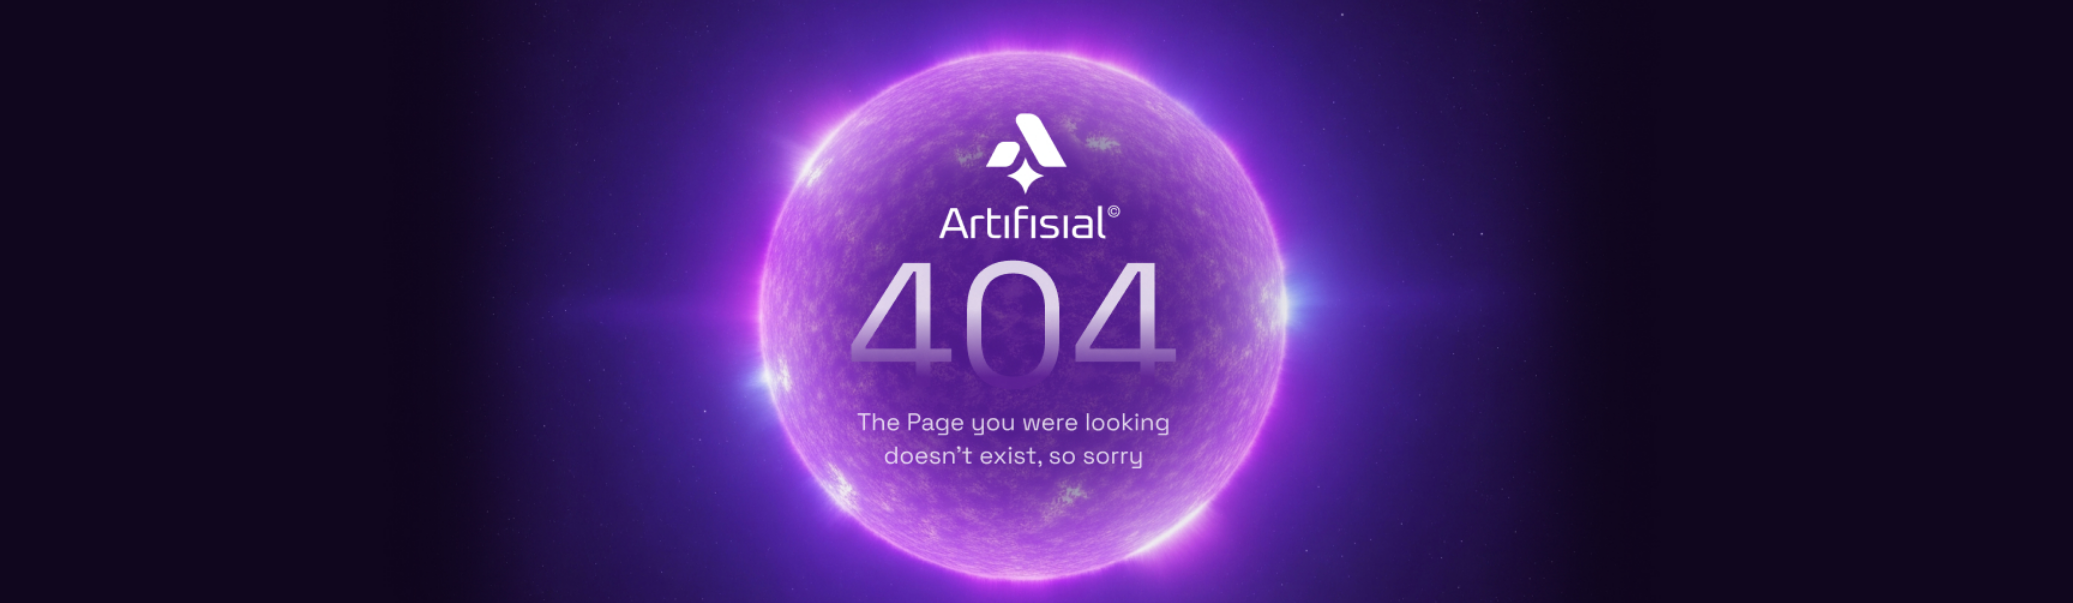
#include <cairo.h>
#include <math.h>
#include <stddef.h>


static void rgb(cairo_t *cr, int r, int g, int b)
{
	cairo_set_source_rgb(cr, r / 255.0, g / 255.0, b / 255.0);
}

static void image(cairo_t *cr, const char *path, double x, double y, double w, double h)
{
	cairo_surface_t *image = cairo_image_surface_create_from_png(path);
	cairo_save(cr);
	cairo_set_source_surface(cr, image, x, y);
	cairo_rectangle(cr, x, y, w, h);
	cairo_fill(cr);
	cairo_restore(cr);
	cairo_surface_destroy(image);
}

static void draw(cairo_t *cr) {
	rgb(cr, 255, 255, 255);
	cairo_paint(cr);
	image(cr, "image0.png", 0, 0, 2073, 603);
}

int main(void) {
	cairo_surface_t *surface = cairo_image_surface_create(CAIRO_FORMAT_RGB24, 2073, 603);
	cairo_t *cr = cairo_create(surface);
	cairo_font_options_t *options = cairo_font_options_create();
	cairo_font_options_set_hint_metrics(options, CAIRO_HINT_METRICS_OFF);
	cairo_font_options_set_hint_style(options, CAIRO_HINT_STYLE_NONE);
	cairo_set_font_options(cr, options);
	cairo_set_miter_limit(cr, 4);
	draw(cr);
	cairo_surface_write_to_png(surface, "render.png");
	cairo_font_options_destroy(options);
	cairo_destroy(cr);
	cairo_surface_destroy(surface);
	return 0;
}
